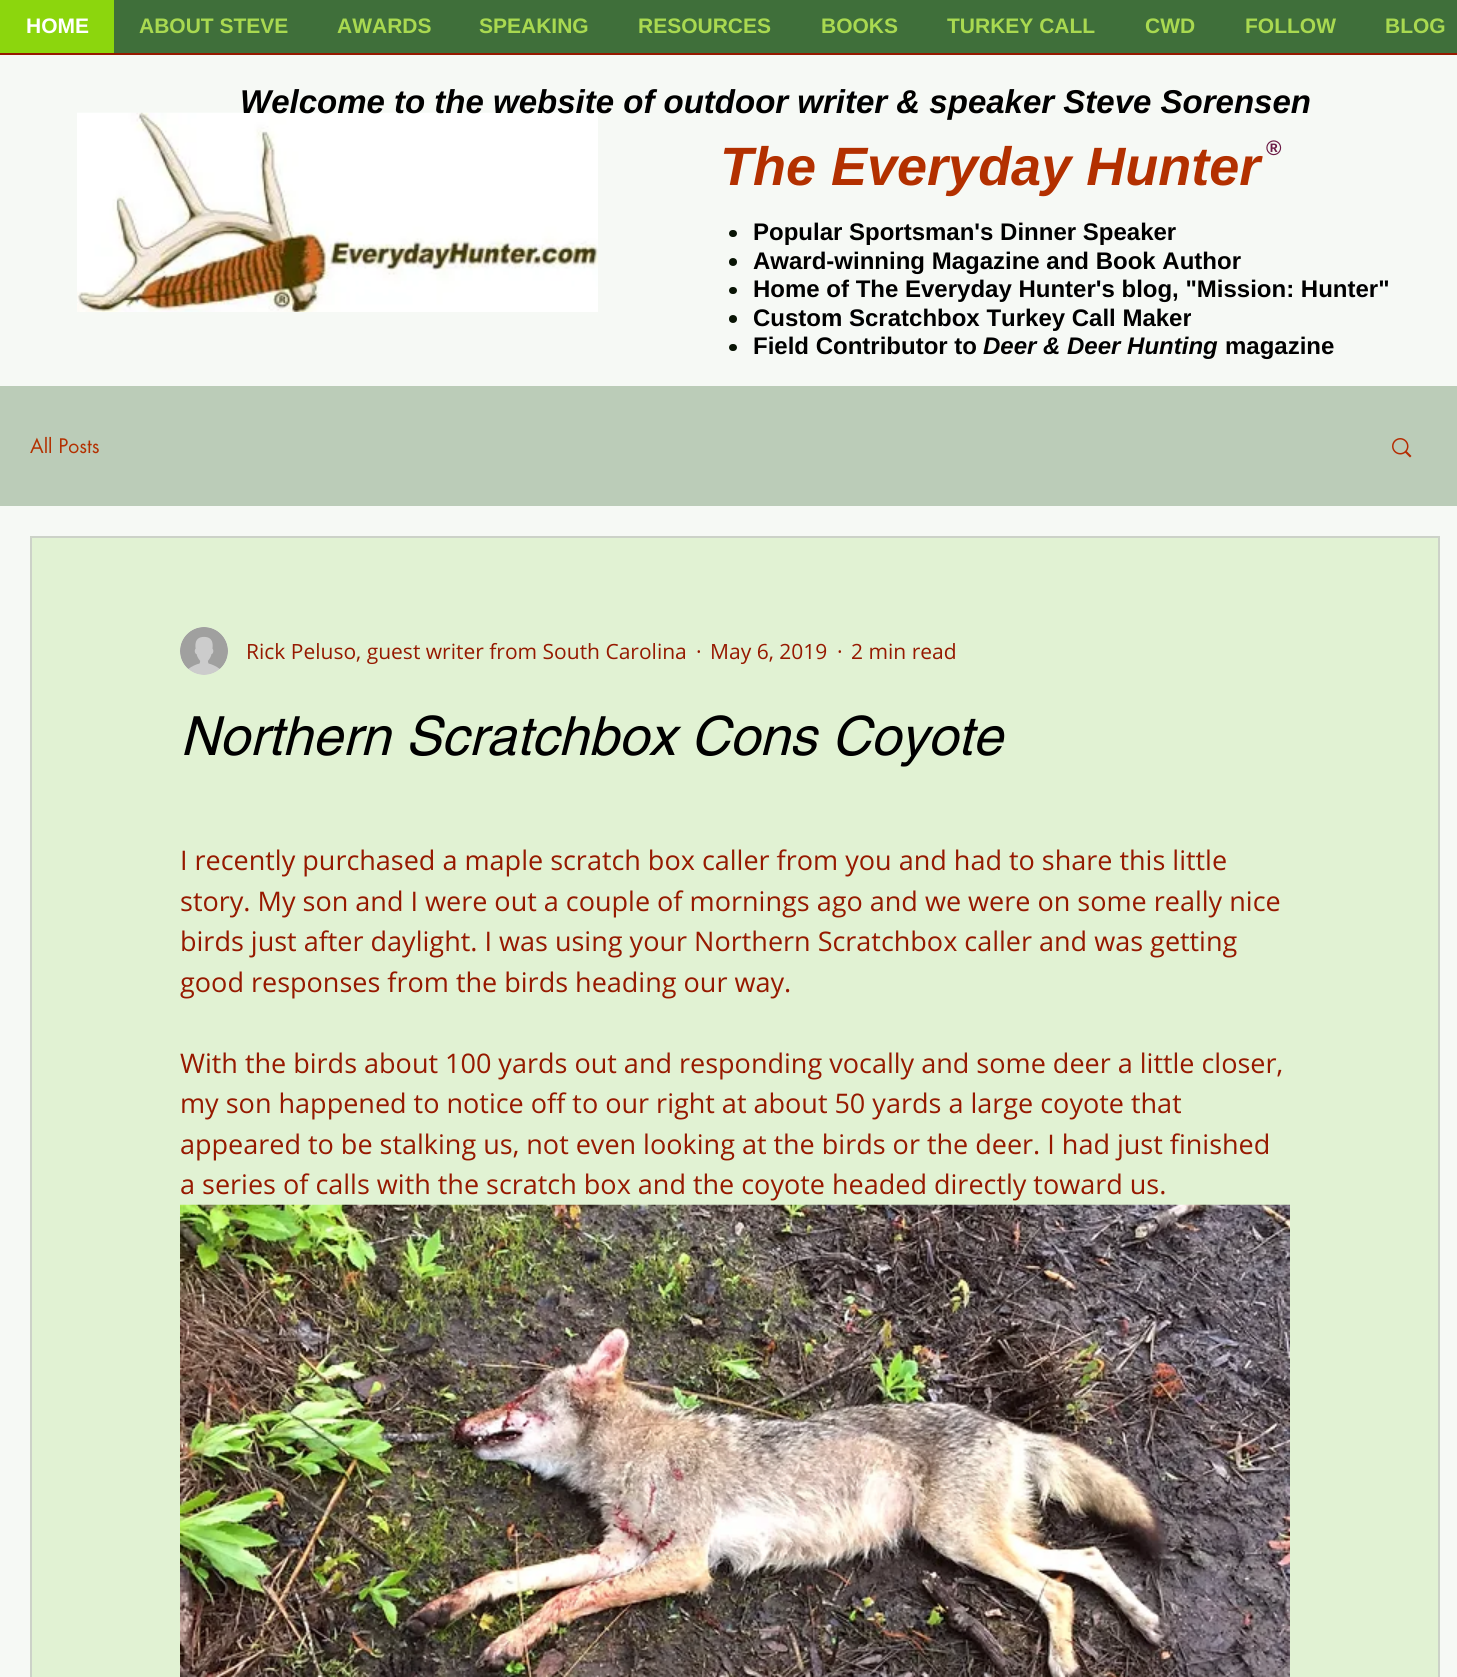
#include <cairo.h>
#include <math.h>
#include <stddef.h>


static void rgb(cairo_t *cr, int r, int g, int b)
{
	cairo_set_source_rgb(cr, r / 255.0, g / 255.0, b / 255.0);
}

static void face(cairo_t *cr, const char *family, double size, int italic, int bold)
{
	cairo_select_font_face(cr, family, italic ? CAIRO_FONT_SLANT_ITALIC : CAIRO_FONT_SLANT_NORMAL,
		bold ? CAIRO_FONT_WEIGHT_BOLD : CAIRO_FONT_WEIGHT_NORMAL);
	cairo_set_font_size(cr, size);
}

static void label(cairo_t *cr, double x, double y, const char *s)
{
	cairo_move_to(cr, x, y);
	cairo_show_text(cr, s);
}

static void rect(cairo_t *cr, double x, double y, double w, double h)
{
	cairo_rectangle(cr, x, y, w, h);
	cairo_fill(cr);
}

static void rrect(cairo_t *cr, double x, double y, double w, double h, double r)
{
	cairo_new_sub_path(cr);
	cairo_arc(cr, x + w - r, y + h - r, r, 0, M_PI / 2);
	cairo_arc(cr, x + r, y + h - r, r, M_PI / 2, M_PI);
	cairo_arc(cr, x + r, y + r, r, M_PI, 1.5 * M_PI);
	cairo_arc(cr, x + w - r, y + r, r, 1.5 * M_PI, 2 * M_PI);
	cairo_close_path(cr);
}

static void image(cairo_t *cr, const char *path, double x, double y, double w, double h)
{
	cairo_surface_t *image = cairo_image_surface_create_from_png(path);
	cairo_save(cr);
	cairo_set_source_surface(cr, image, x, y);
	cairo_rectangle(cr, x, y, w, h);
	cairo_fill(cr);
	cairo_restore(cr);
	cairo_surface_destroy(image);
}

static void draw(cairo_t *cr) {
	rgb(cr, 246, 249, 245);
	cairo_paint(cr);
	rgb(cr, 63, 111, 58);
	rect(cr, 114, 0, 1343, 53);
	rgb(cr, 150, 25, 0);
	rect(cr, 0, 53, 1457, 2);
	rgb(cr, 140, 214, 13);
	rect(cr, 0, 0, 114, 53);
	face(cr, "Liberation Sans", 21, 0, 1);
	rgb(cr, 255, 255, 255);
	label(cr, 26, 33, "HOME");
	rgb(cr, 169, 217, 80);
	label(cr, 139, 33, "ABOUT STEVE");
	label(cr, 337, 33, "AWARDS");
	label(cr, 479, 33, "SPEAKING");
	label(cr, 638, 33, "RESOURCES");
	label(cr, 821, 33, "BOOKS");
	label(cr, 947, 33, "TURKEY CALL");
	label(cr, 1145, 33, "CWD");
	label(cr, 1245, 33, "FOLLOW");
	label(cr, 1385, 33, "BLOG");
	image(cr, "image0.png", 77, 112, 521, 200);
	face(cr, "Liberation Sans", 33, 1, 1);
	rgb(cr, 0, 0, 0);
	label(cr, 240, 113, "Welcome to the website of outdoor writer & speaker Steve Sorensen");
	face(cr, "Liberation Sans", 54, 1, 1);
	rgb(cr, 179, 48, 0);
	label(cr, 720, 185, "The Everyday Hunter");
	face(cr, "Liberation Sans", 21, 0, 1);
	rgb(cr, 107, 26, 69);
	label(cr, 1266, 155, "®");
	rgb(cr, 9, 20, 5);
	rrect(cr, 729, 230, 8, 7, 3.5);
	cairo_fill(cr);
	face(cr, "Liberation Sans", 24, 0, 1);
	rgb(cr, 0, 0, 0);
	label(cr, 753, 240, "Popular Sportsman's Dinner Speaker");
	rgb(cr, 9, 20, 5);
	cairo_new_path(cr);
	cairo_arc(cr, 733, 262, 4, 0, 2 * M_PI);
	cairo_fill(cr);
	rgb(cr, 0, 0, 0);
	label(cr, 753, 269, "Award-winning Magazine and Book Author");
	rgb(cr, 9, 20, 5);
	rrect(cr, 729, 287, 8, 7, 3.5);
	cairo_fill(cr);
	rgb(cr, 0, 0, 0);
	label(cr, 753, 297, "Home of The Everyday Hunter's blog, \"Mission: Hunter\"");
	rgb(cr, 9, 20, 5);
	cairo_new_path(cr);
	cairo_arc(cr, 733, 319, 4, 0, 2 * M_PI);
	cairo_fill(cr);
	rgb(cr, 0, 0, 0);
	label(cr, 753, 326, "Custom Scratchbox Turkey Call Maker");
	rgb(cr, 9, 20, 5);
	rrect(cr, 729, 344, 8, 7, 3.5);
	cairo_fill(cr);
	rgb(cr, 0, 0, 0);
	label(cr, 753, 354, "Field Contributor to");
	face(cr, "Liberation Sans", 24, 1, 1);
	label(cr, 983, 354, "Deer & Deer Hunting");
	face(cr, "Liberation Sans", 24, 0, 1);
	label(cr, 1225, 354, "magazine");
	rgb(cr, 187, 204, 184);
	rect(cr, 0, 386, 1457, 120);
	face(cr, "futura", 19.5, 0, 0);
	rgb(cr, 179, 48, 0);
	label(cr, 30, 453, "All Posts");
	image(cr, "image1.png", 1392, 438, 20, 20);
	rgb(cr, 225, 242, 211);
	cairo_rectangle(cr, 31, 537, 1408, 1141);
	cairo_fill_preserve(cr);
	rgb(cr, 204, 210, 200);
	cairo_stroke(cr);
	image(cr, "image2.png", 180, 627, 48, 48);
	face(cr, "Open Sans", 21, 0, 0);
	rgb(cr, 150, 25, 0);
	label(cr, 246, 659, "Rick Peluso, guest writer from South Carolina");
	label(cr, 696, 659, "·");
	label(cr, 710, 659, "May 6, 2019");
	label(cr, 837, 659, "·");
	label(cr, 851, 659, "2 min read");
	face(cr, "helvetica", 54, 1, 0);
	rgb(cr, 0, 0, 0);
	label(cr, 180, 755, "Northern Scratchbox Cons Coyote");
	face(cr, "Open Sans", 27, 0, 0);
	rgb(cr, 150, 25, 0);
	label(cr, 180, 870, "I recently purchased a maple scratch box caller from you and had to share this little");
	label(cr, 180, 911, "story. My son and I were out a couple of mornings ago and we were on some really nice");
	label(cr, 180, 951, "birds just after daylight. I was using your Northern Scratchbox caller and was getting");
	label(cr, 180, 992, "good responses from the birds heading our way.");
	label(cr, 180, 1073, "With the birds about 100 yards out and responding vocally and some deer a little closer,");
	label(cr, 180, 1113, "my son happened to notice off to our right at about 50 yards a large coyote that");
	label(cr, 180, 1154, "appeared to be stalking us, not even looking at the birds or the deer. I had just finished");
	label(cr, 180, 1194, "a series of calls with the scratch box and the coyote headed directly toward us.");
	image(cr, "image3.png", 180, 1204, 1110, 473);
}

int main(void) {
	cairo_surface_t *surface = cairo_image_surface_create(CAIRO_FORMAT_RGB24, 1457, 1677);
	cairo_t *cr = cairo_create(surface);
	cairo_font_options_t *options = cairo_font_options_create();
	cairo_font_options_set_hint_metrics(options, CAIRO_HINT_METRICS_OFF);
	cairo_font_options_set_hint_style(options, CAIRO_HINT_STYLE_NONE);
	cairo_set_font_options(cr, options);
	cairo_set_miter_limit(cr, 4);
	draw(cr);
	cairo_surface_write_to_png(surface, "render.png");
	cairo_font_options_destroy(options);
	cairo_destroy(cr);
	cairo_surface_destroy(surface);
	return 0;
}
